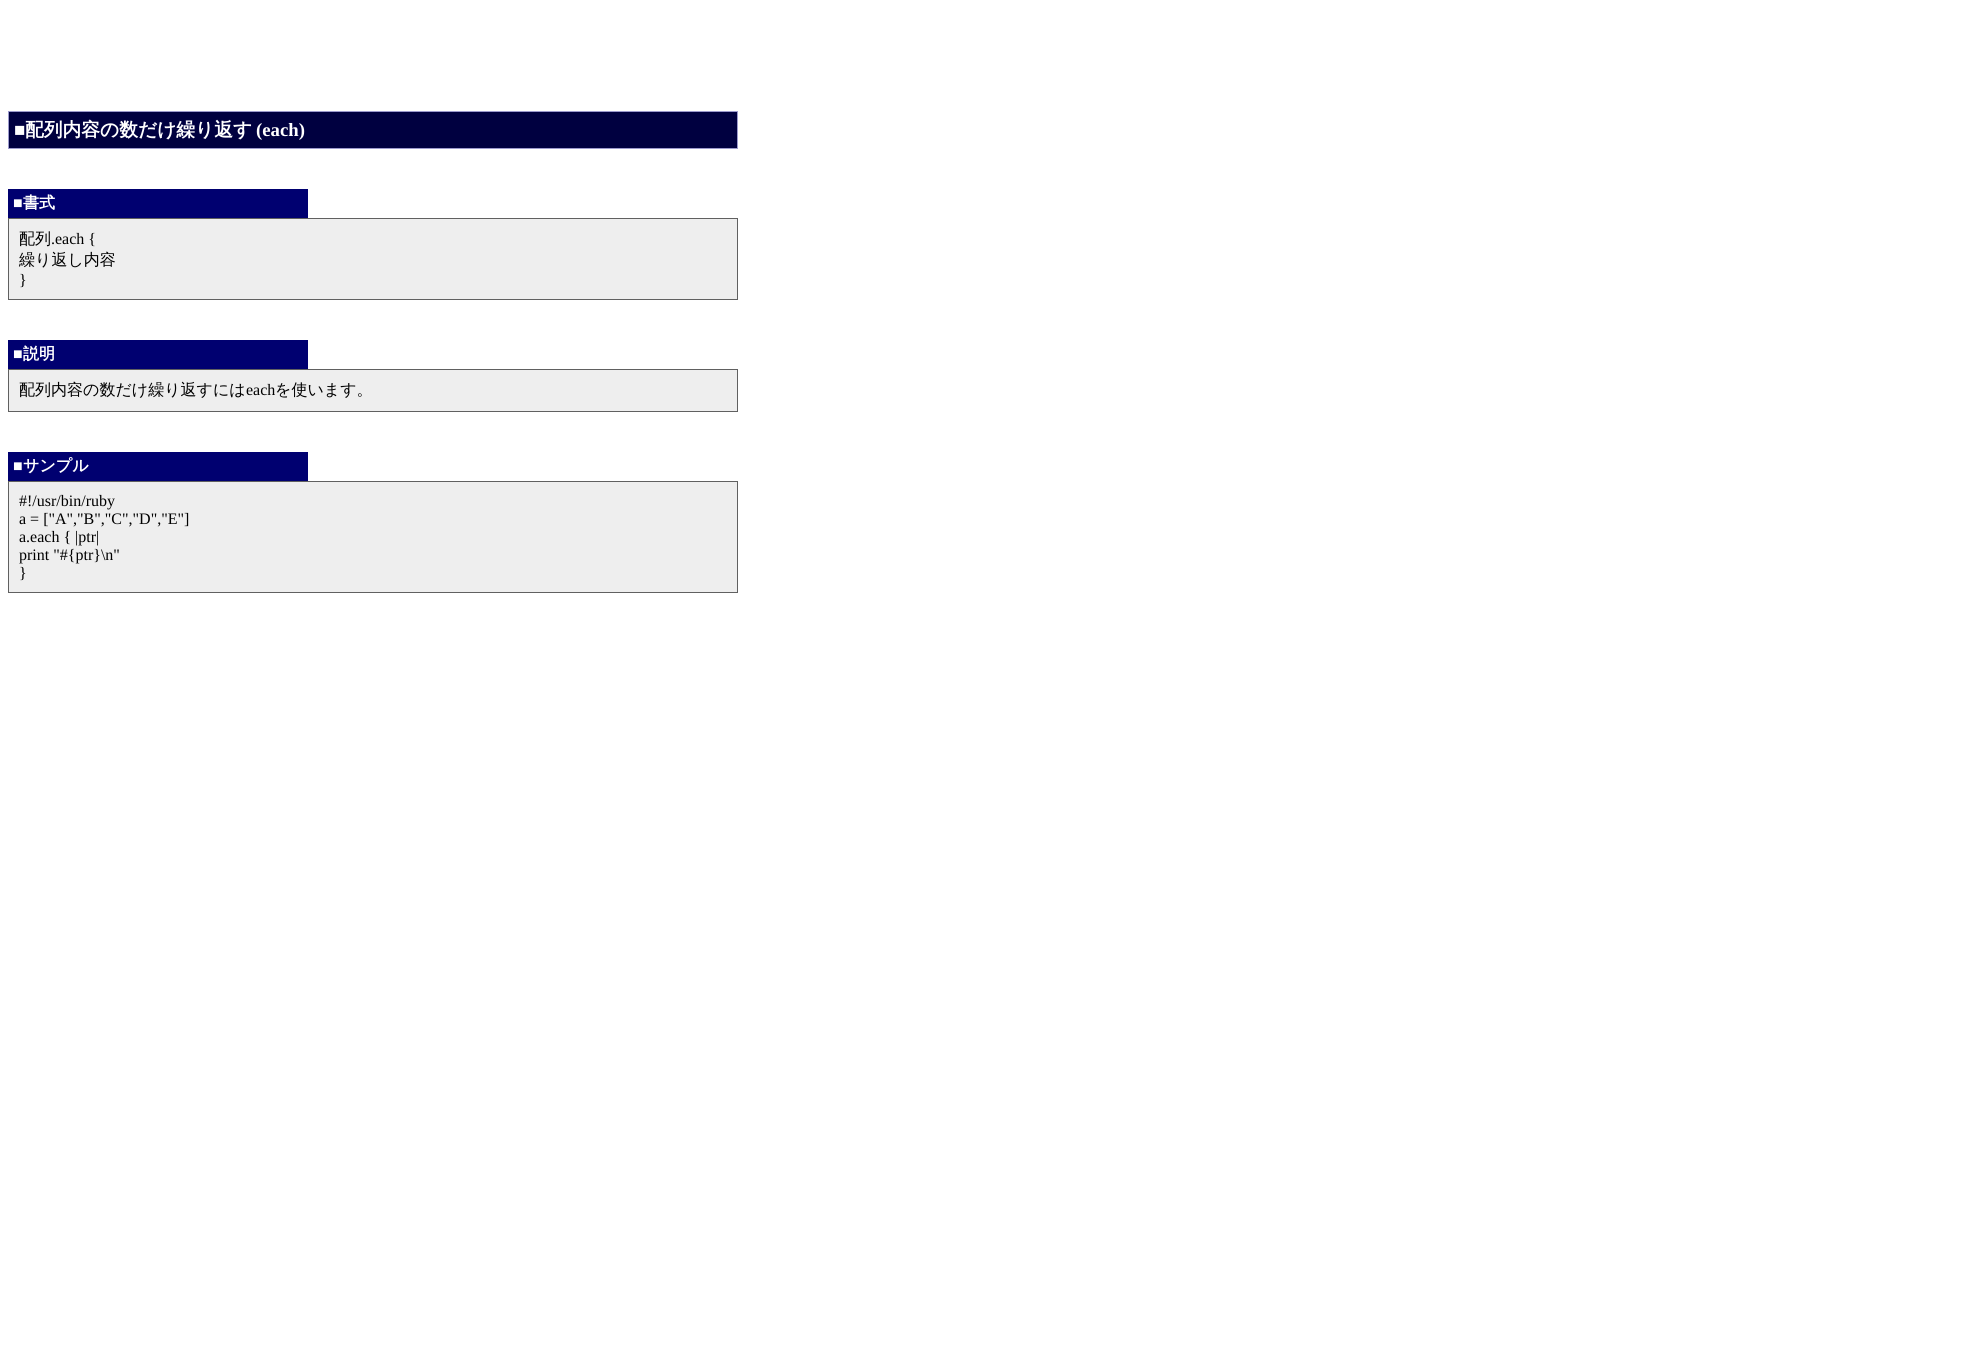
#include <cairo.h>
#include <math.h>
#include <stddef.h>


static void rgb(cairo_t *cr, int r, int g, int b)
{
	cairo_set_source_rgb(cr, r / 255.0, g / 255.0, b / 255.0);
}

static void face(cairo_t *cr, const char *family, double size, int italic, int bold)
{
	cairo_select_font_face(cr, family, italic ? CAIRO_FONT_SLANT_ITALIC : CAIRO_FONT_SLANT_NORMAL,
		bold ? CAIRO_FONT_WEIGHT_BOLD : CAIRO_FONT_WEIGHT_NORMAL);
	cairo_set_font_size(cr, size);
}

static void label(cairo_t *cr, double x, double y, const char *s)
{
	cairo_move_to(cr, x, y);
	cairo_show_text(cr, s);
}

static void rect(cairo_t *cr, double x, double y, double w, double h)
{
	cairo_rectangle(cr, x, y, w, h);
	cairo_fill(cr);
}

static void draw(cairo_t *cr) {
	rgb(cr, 255, 255, 255);
	cairo_paint(cr);
	rgb(cr, 0, 0, 64);
	cairo_rectangle(cr, 8.5, 111.5, 729, 37);
	cairo_fill_preserve(cr);
	rgb(cr, 156, 154, 205);
	cairo_set_line_width(cr, 1);
	cairo_stroke(cr);
	face(cr, "Liberation Serif", 18.75, 0, 1);
	rgb(cr, 255, 255, 255);
	label(cr, 14, 136, "■");
	face(cr, "WenQuanYi Zen Hei", 18.75, 0, 1);
	label(cr, 25, 136, "配列内容の数だけ繰り返す");
	face(cr, "Liberation Serif", 18.75, 0, 1);
	label(cr, 256, 136, "(each)");
	rgb(cr, 0, 0, 112);
	rect(cr, 8, 189, 300, 29);
	face(cr, "Liberation Serif", 16, 0, 1);
	rgb(cr, 255, 255, 255);
	label(cr, 13, 208, "■");
	face(cr, "WenQuanYi Zen Hei", 16, 0, 1);
	label(cr, 23, 208, "書式");
	rgb(cr, 238, 238, 238);
	cairo_rectangle(cr, 8.5, 218.5, 729, 81);
	cairo_fill_preserve(cr);
	rgb(cr, 96, 96, 96);
	cairo_stroke(cr);
	face(cr, "WenQuanYi Zen Hei Medium", 16, 0, 0);
	rgb(cr, 0, 0, 0);
	label(cr, 19, 244, "配列");
	face(cr, "Liberation Serif", 16, 0, 0);
	label(cr, 51, 244, ".each {");
	face(cr, "WenQuanYi Zen Hei Medium", 16, 0, 0);
	label(cr, 19, 265, "繰り返し内容");
	face(cr, "Liberation Serif", 16, 0, 0);
	label(cr, 19, 285, "}");
	rgb(cr, 0, 0, 112);
	rect(cr, 8, 340, 300, 29);
	face(cr, "Liberation Serif", 16, 0, 1);
	rgb(cr, 255, 255, 255);
	label(cr, 13, 359, "■");
	face(cr, "WenQuanYi Zen Hei", 16, 0, 1);
	label(cr, 23, 359, "説明");
	rgb(cr, 238, 238, 238);
	cairo_rectangle(cr, 8.5, 369.5, 729, 42);
	cairo_fill_preserve(cr);
	rgb(cr, 96, 96, 96);
	cairo_stroke(cr);
	face(cr, "WenQuanYi Zen Hei Medium", 16, 0, 0);
	rgb(cr, 0, 0, 0);
	label(cr, 19, 395, "配列内容の数だけ繰り返すには");
	face(cr, "Liberation Serif", 16, 0, 0);
	label(cr, 246, 395, "each");
	face(cr, "WenQuanYi Zen Hei Medium", 16, 0, 0);
	label(cr, 275, 395, "を使います。");
	rgb(cr, 0, 0, 112);
	rect(cr, 8, 452, 300, 29);
	face(cr, "Liberation Serif", 16, 0, 1);
	rgb(cr, 255, 255, 255);
	label(cr, 13, 471, "■");
	face(cr, "WenQuanYi Zen Hei", 16, 0, 1);
	label(cr, 23, 471, "サンプル");
	rgb(cr, 238, 238, 238);
	cairo_rectangle(cr, 8.5, 481.5, 729, 111);
	cairo_fill_preserve(cr);
	rgb(cr, 96, 96, 96);
	cairo_stroke(cr);
	face(cr, "Liberation Serif", 16, 0, 0);
	rgb(cr, 0, 0, 0);
	label(cr, 19, 506, "#!/usr/bin/ruby");
	label(cr, 19, 524, "a = [\"A\",\"B\",\"C\",\"D\",\"E\"]");
	label(cr, 19, 542, "a.each { |ptr|");
	label(cr, 19, 560, "print \"#{ptr}\\n\"");
	label(cr, 19, 578, "}");
}

int main(void) {
	cairo_surface_t *surface = cairo_image_surface_create(CAIRO_FORMAT_RGB24, 1986, 1350);
	cairo_t *cr = cairo_create(surface);
	cairo_font_options_t *options = cairo_font_options_create();
	cairo_font_options_set_hint_metrics(options, CAIRO_HINT_METRICS_OFF);
	cairo_font_options_set_hint_style(options, CAIRO_HINT_STYLE_NONE);
	cairo_set_font_options(cr, options);
	cairo_set_miter_limit(cr, 4);
	draw(cr);
	cairo_surface_write_to_png(surface, "render.png");
	cairo_font_options_destroy(options);
	cairo_destroy(cr);
	cairo_surface_destroy(surface);
	return 0;
}
